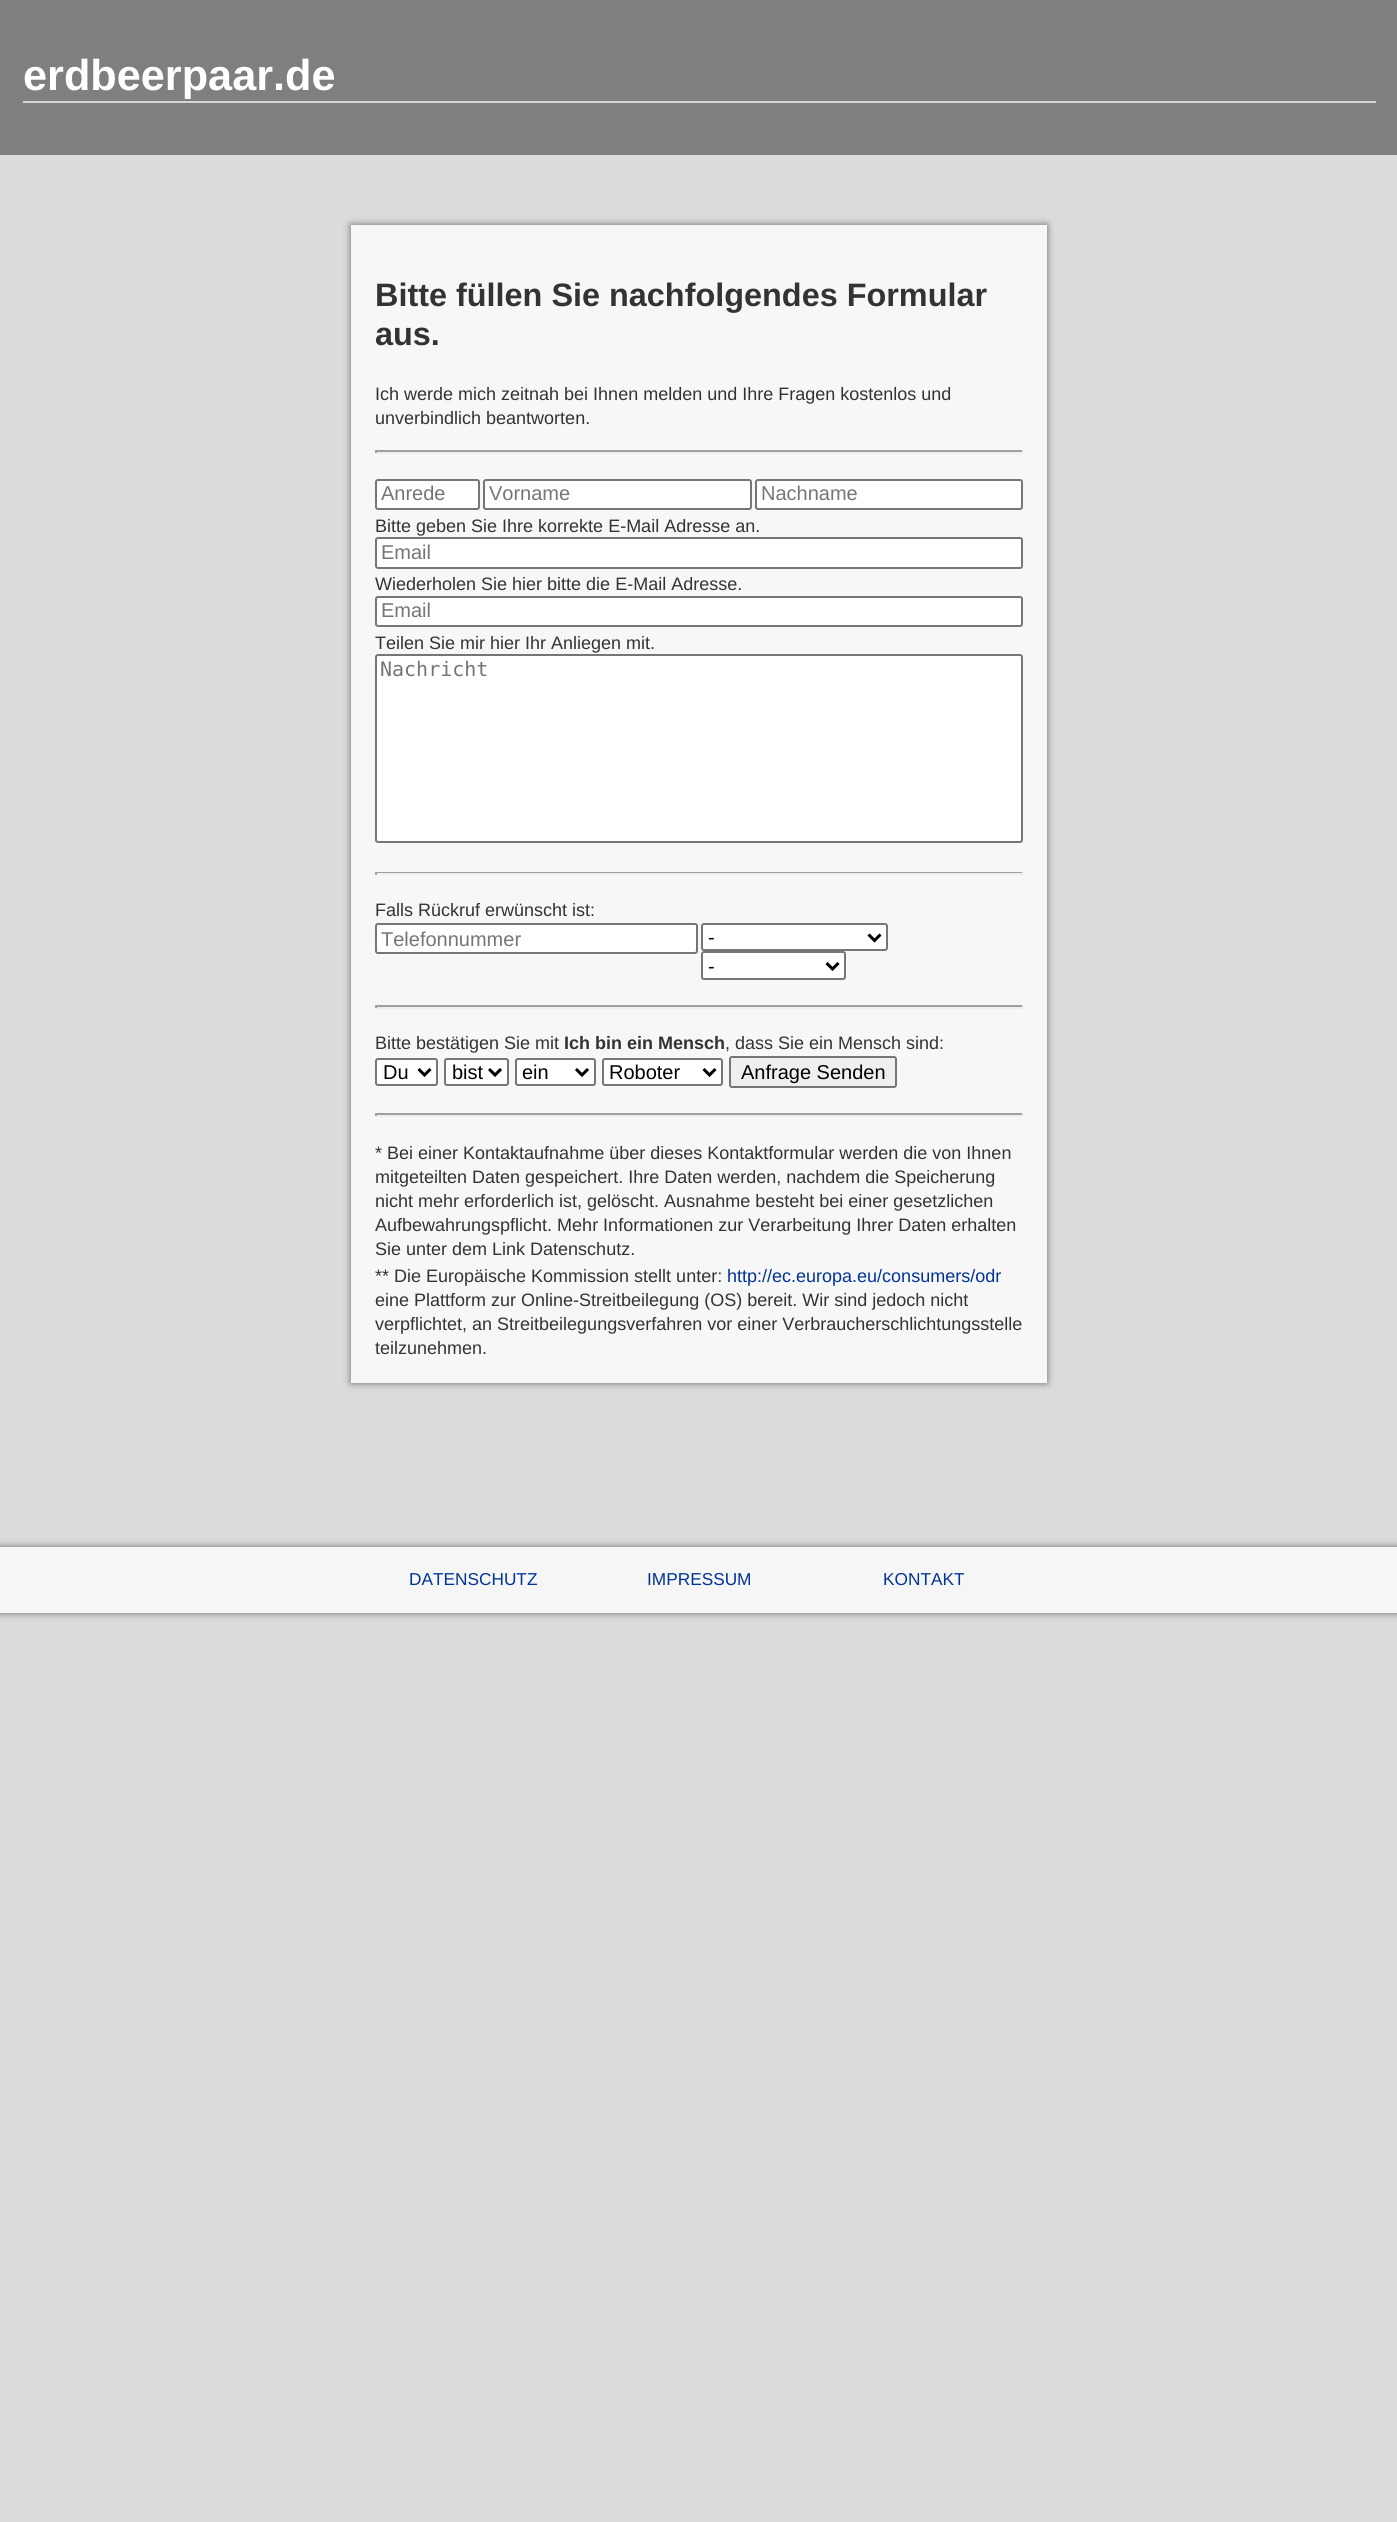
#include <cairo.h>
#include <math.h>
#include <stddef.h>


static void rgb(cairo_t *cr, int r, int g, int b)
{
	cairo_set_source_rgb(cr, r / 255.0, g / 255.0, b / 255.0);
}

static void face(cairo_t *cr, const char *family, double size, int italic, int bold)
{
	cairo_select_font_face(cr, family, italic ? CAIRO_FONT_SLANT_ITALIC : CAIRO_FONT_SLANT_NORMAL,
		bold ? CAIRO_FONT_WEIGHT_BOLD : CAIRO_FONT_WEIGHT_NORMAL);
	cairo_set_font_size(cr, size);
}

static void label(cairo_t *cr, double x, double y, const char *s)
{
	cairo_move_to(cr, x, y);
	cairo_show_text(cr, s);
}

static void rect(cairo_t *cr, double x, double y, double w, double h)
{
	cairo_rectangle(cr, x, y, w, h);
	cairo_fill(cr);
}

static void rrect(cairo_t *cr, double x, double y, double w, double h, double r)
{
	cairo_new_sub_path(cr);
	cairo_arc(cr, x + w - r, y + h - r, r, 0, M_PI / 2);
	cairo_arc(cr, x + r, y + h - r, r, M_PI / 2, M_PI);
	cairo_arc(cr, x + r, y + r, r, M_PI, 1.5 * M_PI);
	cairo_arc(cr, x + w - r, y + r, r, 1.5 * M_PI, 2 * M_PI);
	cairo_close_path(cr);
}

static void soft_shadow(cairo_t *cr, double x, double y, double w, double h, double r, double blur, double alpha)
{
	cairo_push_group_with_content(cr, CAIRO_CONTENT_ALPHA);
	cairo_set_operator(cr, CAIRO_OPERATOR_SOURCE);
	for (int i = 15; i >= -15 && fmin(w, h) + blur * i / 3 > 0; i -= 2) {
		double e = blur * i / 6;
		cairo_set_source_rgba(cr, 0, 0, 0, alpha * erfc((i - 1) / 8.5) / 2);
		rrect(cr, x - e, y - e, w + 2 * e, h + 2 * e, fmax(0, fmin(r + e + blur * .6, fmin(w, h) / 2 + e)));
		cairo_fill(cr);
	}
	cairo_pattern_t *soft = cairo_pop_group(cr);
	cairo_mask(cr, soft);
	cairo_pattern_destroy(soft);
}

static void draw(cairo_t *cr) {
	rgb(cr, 220, 220, 220);
	cairo_paint(cr);
	rgb(cr, 127, 127, 127);
	rect(cr, 0, 0, 1397, 155);
	rgb(cr, 209, 213, 216);
	rect(cr, 23, 101, 1353, 2);
	face(cr, "Liberation Sans", 43.25, 0, 1);
	rgb(cr, 255, 255, 255);
	label(cr, 23, 90, "erdbeerpaar.de");
	rgb(cr, 0, 0, 0);
	soft_shadow(cr, 351, 225, 696, 1158, 0, 4, 0.5);
	rgb(cr, 247, 247, 247);
	rect(cr, 351, 225, 696, 1158);
	face(cr, "Liberation Sans", 32.4, 0, 1);
	rgb(cr, 51, 51, 51);
	label(cr, 375, 306, "Bitte füllen Sie nachfolgendes Formular");
	label(cr, 375, 345, "aus.");
	face(cr, "Liberation Sans", 18, 0, 0);
	label(cr, 375, 400, "Ich werde mich zeitnah bei Ihnen melden und Ihre Fragen kostenlos und");
	label(cr, 375, 424, "unverbindlich beantworten.");
	rgb(cr, 159, 159, 159);
	rect(cr, 375, 450, 648, 2);
	rgb(cr, 238, 238, 238);
	rect(cr, 1022, 450, 2, 3);
	rect(cr, 375, 452, 648, 2);
	rgb(cr, 159, 159, 159);
	rect(cr, 375, 450, 2, 3);
	rgb(cr, 255, 255, 255);
	rrect(cr, 376, 480, 103, 29, 2);
	cairo_fill_preserve(cr);
	rgb(cr, 118, 118, 118);
	cairo_stroke(cr);
	face(cr, "Liberation Sans", 20, 0, 0);
	rgb(cr, 117, 117, 117);
	label(cr, 381, 500, "Anrede");
	rgb(cr, 255, 255, 255);
	rrect(cr, 484, 480, 267, 29, 2);
	cairo_fill_preserve(cr);
	rgb(cr, 118, 118, 118);
	cairo_stroke(cr);
	rgb(cr, 117, 117, 117);
	label(cr, 489, 500, "Vorname");
	rgb(cr, 255, 255, 255);
	rrect(cr, 756, 480, 266, 29, 2);
	cairo_fill_preserve(cr);
	rgb(cr, 118, 118, 118);
	cairo_stroke(cr);
	rgb(cr, 117, 117, 117);
	label(cr, 761, 500, "Nachname");
	face(cr, "Liberation Sans", 18, 0, 0);
	rgb(cr, 51, 51, 51);
	label(cr, 375, 532, "Bitte geben Sie Ihre korrekte E-Mail Adresse an.");
	rgb(cr, 255, 255, 255);
	rrect(cr, 376, 538, 646, 30, 2);
	cairo_fill_preserve(cr);
	rgb(cr, 118, 118, 118);
	cairo_stroke(cr);
	face(cr, "Liberation Sans", 20, 0, 0);
	rgb(cr, 117, 117, 117);
	label(cr, 381, 559, "Email");
	face(cr, "Liberation Sans", 18, 0, 0);
	rgb(cr, 51, 51, 51);
	label(cr, 375, 590, "Wiederholen Sie hier bitte die E-Mail Adresse.");
	rgb(cr, 255, 255, 255);
	rrect(cr, 376, 597, 646, 29, 2);
	cairo_fill_preserve(cr);
	rgb(cr, 118, 118, 118);
	cairo_stroke(cr);
	face(cr, "Liberation Sans", 20, 0, 0);
	rgb(cr, 117, 117, 117);
	label(cr, 381, 617, "Email");
	face(cr, "Liberation Sans", 18, 0, 0);
	rgb(cr, 51, 51, 51);
	label(cr, 375, 649, "Teilen Sie mir hier Ihr Anliegen mit.");
	rgb(cr, 255, 255, 255);
	rrect(cr, 376, 655, 646, 187, 2);
	cairo_fill_preserve(cr);
	rgb(cr, 118, 118, 118);
	cairo_stroke(cr);
	face(cr, "DejaVu Sans Mono", 20, 0, 0);
	rgb(cr, 117, 117, 117);
	label(cr, 380, 676, "Nachricht");
	rgb(cr, 159, 159, 159);
	rect(cr, 375, 872, 648, 1);
	rgb(cr, 238, 238, 238);
	rect(cr, 1022, 872, 2, 3);
	rect(cr, 375, 873, 648, 2);
	rgb(cr, 159, 159, 159);
	rect(cr, 375, 872, 2, 3);
	face(cr, "Liberation Sans", 18, 0, 0);
	rgb(cr, 51, 51, 51);
	label(cr, 375, 916, "Falls Rückruf erwünscht ist:");
	rgb(cr, 255, 255, 255);
	rrect(cr, 376, 924, 321, 29, 2);
	cairo_fill_preserve(cr);
	rgb(cr, 118, 118, 118);
	cairo_stroke(cr);
	face(cr, "Liberation Sans", 20, 0, 0);
	rgb(cr, 117, 117, 117);
	label(cr, 381, 946, "Telefonnummer");
	rgb(cr, 255, 255, 255);
	rrect(cr, 702, 924, 185, 26, 2);
	cairo_fill_preserve(cr);
	rgb(cr, 118, 118, 118);
	cairo_stroke(cr);
	cairo_new_path(cr);
	cairo_move_to(cr, 868.5, 934.5);
	cairo_line_to(cr, 874.5, 940.5);
	cairo_line_to(cr, 880.5, 934.5);
	rgb(cr, 0, 0, 0);
	cairo_set_line_width(cr, 3);
	cairo_stroke(cr);
	label(cr, 708, 944, "-");
	rgb(cr, 255, 255, 255);
	rrect(cr, 702, 952, 143, 27, 2);
	cairo_fill_preserve(cr);
	rgb(cr, 118, 118, 118);
	cairo_set_line_width(cr, 2);
	cairo_stroke(cr);
	cairo_new_path(cr);
	cairo_move_to(cr, 826.5, 963);
	cairo_line_to(cr, 832.5, 969);
	cairo_line_to(cr, 838.5, 963);
	rgb(cr, 0, 0, 0);
	cairo_set_line_width(cr, 3);
	cairo_stroke(cr);
	label(cr, 708, 973, "-");
	rgb(cr, 159, 159, 159);
	rect(cr, 375, 1005, 648, 2);
	rgb(cr, 238, 238, 238);
	rect(cr, 1022, 1005, 2, 3);
	rect(cr, 375, 1007, 648, 2);
	rgb(cr, 159, 159, 159);
	rect(cr, 375, 1005, 2, 3);
	face(cr, "Liberation Sans", 18, 0, 0);
	rgb(cr, 51, 51, 51);
	label(cr, 375, 1049, "Bitte bestätigen Sie mit");
	face(cr, "Liberation Sans", 18, 0, 1);
	label(cr, 564, 1049, "Ich bin ein Mensch");
	face(cr, "Liberation Sans", 18, 0, 0);
	label(cr, 725, 1049, ", dass Sie ein Mensch sind:");
	rgb(cr, 255, 255, 255);
	rrect(cr, 376, 1059, 61, 26, 2);
	cairo_fill_preserve(cr);
	rgb(cr, 118, 118, 118);
	cairo_set_line_width(cr, 2);
	cairo_stroke(cr);
	cairo_new_path(cr);
	cairo_move_to(cr, 418.5, 1069);
	cairo_line_to(cr, 424.5, 1075);
	cairo_line_to(cr, 430.5, 1069);
	rgb(cr, 0, 0, 0);
	cairo_set_line_width(cr, 3);
	cairo_stroke(cr);
	face(cr, "Liberation Sans", 20, 0, 0);
	label(cr, 383, 1079, "Du");
	rgb(cr, 255, 255, 255);
	rrect(cr, 445, 1059, 63, 26, 2);
	cairo_fill_preserve(cr);
	rgb(cr, 118, 118, 118);
	cairo_set_line_width(cr, 2);
	cairo_stroke(cr);
	cairo_new_path(cr);
	cairo_move_to(cr, 489, 1069);
	cairo_line_to(cr, 495, 1075);
	cairo_line_to(cr, 501, 1069);
	rgb(cr, 0, 0, 0);
	cairo_set_line_width(cr, 3);
	cairo_stroke(cr);
	label(cr, 452, 1079, "bist");
	rgb(cr, 255, 255, 255);
	rrect(cr, 516, 1059, 79, 26, 2);
	cairo_fill_preserve(cr);
	rgb(cr, 118, 118, 118);
	cairo_set_line_width(cr, 2);
	cairo_stroke(cr);
	cairo_new_path(cr);
	cairo_move_to(cr, 576, 1069);
	cairo_line_to(cr, 582, 1075);
	cairo_line_to(cr, 588, 1069);
	rgb(cr, 0, 0, 0);
	cairo_set_line_width(cr, 3);
	cairo_stroke(cr);
	label(cr, 522, 1079, "ein");
	rgb(cr, 255, 255, 255);
	rrect(cr, 603, 1059, 119, 26, 2);
	cairo_fill_preserve(cr);
	rgb(cr, 118, 118, 118);
	cairo_set_line_width(cr, 2);
	cairo_stroke(cr);
	cairo_new_path(cr);
	cairo_move_to(cr, 703.5, 1069);
	cairo_line_to(cr, 709.5, 1075);
	cairo_line_to(cr, 715.5, 1069);
	rgb(cr, 0, 0, 0);
	cairo_set_line_width(cr, 3);
	cairo_stroke(cr);
	label(cr, 609, 1079, "Roboter");
	rgb(cr, 239, 239, 239);
	rrect(cr, 730, 1057, 166, 30, 2);
	cairo_fill_preserve(cr);
	rgb(cr, 118, 118, 118);
	cairo_set_line_width(cr, 2);
	cairo_stroke(cr);
	rgb(cr, 0, 0, 0);
	label(cr, 741, 1079, "Anfrage Senden");
	rgb(cr, 159, 159, 159);
	rect(cr, 375, 1113, 648, 2);
	rgb(cr, 238, 238, 238);
	rect(cr, 1022, 1113, 2, 3);
	rect(cr, 375, 1115, 648, 2);
	rgb(cr, 159, 159, 159);
	rect(cr, 375, 1113, 2, 3);
	face(cr, "Liberation Sans", 18, 0, 0);
	rgb(cr, 51, 51, 51);
	label(cr, 375, 1159, "* Bei einer Kontaktaufnahme über dieses Kontaktformular werden die von Ihnen");
	label(cr, 375, 1183, "mitgeteilten Daten gespeichert. Ihre Daten werden, nachdem die Speicherung");
	label(cr, 375, 1207, "nicht mehr erforderlich ist, gelöscht. Ausnahme besteht bei einer gesetzlichen");
	label(cr, 375, 1231, "Aufbewahrungspflicht. Mehr Informationen zur Verarbeitung Ihrer Daten erhalten");
	label(cr, 375, 1255, "Sie unter dem Link Datenschutz.");
	label(cr, 375, 1282, "** Die Europäische Kommission stellt unter:");
	rgb(cr, 0, 51, 153);
	label(cr, 727, 1282, "http://ec.europa.eu/consumers/odr");
	rgb(cr, 51, 51, 51);
	label(cr, 375, 1306, "eine Plattform zur Online-Streitbeilegung (OS) bereit. Wir sind jedoch nicht");
	label(cr, 375, 1330, "verpflichtet, an Streitbeilegungsverfahren vor einer Verbraucherschlichtungsstelle");
	label(cr, 375, 1354, "teilzunehmen.");
	cairo_save(cr);
	cairo_set_fill_rule(cr, CAIRO_FILL_RULE_EVEN_ODD);
	cairo_new_path(cr);
	cairo_move_to(cr, 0, 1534);
	cairo_line_to(cr, 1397, 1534);
	cairo_line_to(cr, 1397, 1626);
	cairo_line_to(cr, 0, 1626);
	cairo_close_path(cr);
	cairo_move_to(cr, 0, 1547);
	cairo_line_to(cr, 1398, 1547);
	cairo_line_to(cr, 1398, 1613);
	cairo_line_to(cr, 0, 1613);
	cairo_close_path(cr);
	cairo_clip(cr);
	rgb(cr, 0, 0, 0);
	soft_shadow(cr, 0, 1547, 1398, 66, 0, 4, 0.5);
	cairo_restore(cr);
	cairo_set_source_rgba(cr, 1, 1, 1, 0.75);
	rect(cr, 0, 1547, 1397, 66);
	face(cr, "Liberation Sans", 17.25, 0, 0);
	rgb(cr, 0, 51, 153);
	label(cr, 409, 1585, "DATENSCHUTZ");
	label(cr, 647, 1585, "IMPRESSUM");
	label(cr, 883, 1585, "KONTAKT");
}

int main(void) {
	cairo_surface_t *surface = cairo_image_surface_create(CAIRO_FORMAT_RGB24, 1397, 2522);
	cairo_t *cr = cairo_create(surface);
	cairo_font_options_t *options = cairo_font_options_create();
	cairo_font_options_set_hint_metrics(options, CAIRO_HINT_METRICS_OFF);
	cairo_font_options_set_hint_style(options, CAIRO_HINT_STYLE_NONE);
	cairo_set_font_options(cr, options);
	cairo_set_miter_limit(cr, 4);
	draw(cr);
	cairo_surface_write_to_png(surface, "render.png");
	cairo_font_options_destroy(options);
	cairo_destroy(cr);
	cairo_surface_destroy(surface);
	return 0;
}
